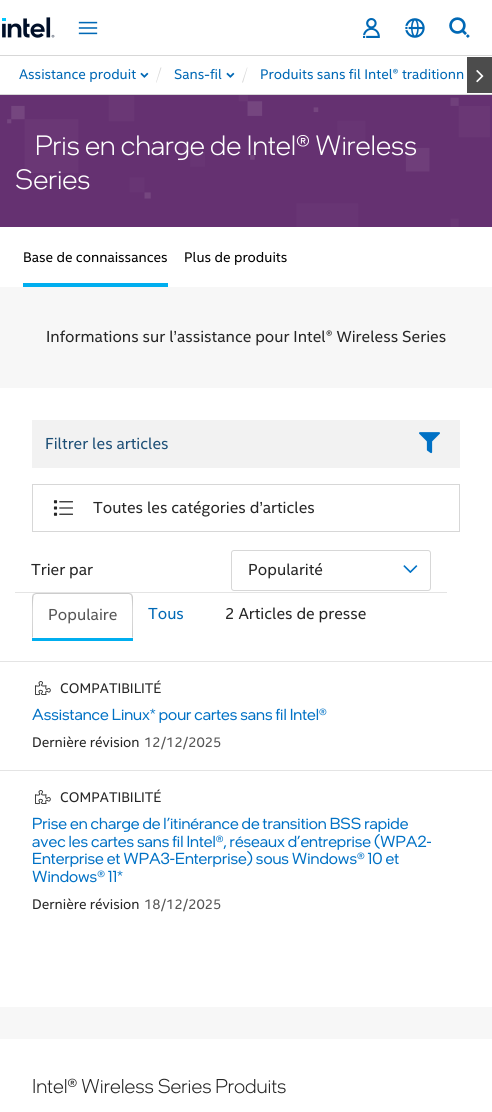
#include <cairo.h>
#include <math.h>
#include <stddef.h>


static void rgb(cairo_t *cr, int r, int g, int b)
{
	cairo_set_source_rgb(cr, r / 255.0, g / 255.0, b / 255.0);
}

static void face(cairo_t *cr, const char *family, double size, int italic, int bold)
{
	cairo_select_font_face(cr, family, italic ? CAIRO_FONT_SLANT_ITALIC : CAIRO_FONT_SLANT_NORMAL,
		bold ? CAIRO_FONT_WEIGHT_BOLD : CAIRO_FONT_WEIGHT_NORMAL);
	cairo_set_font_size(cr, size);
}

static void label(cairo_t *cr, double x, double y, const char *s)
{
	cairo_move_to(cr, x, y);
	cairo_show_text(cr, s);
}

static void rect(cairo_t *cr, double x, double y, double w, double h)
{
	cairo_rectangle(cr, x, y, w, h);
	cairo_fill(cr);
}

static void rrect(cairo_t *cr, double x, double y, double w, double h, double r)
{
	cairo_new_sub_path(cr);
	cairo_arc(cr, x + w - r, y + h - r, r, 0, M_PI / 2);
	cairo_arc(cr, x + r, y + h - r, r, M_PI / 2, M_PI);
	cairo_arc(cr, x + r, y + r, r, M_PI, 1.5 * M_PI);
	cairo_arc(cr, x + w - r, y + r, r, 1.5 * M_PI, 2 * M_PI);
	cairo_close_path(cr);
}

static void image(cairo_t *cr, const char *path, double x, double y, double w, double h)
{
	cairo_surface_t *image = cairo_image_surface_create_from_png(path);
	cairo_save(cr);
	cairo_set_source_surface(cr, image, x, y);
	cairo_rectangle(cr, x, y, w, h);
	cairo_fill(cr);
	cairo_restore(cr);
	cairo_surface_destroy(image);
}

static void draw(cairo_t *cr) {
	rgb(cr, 255, 255, 255);
	cairo_paint(cr);
	rgb(cr, 215, 215, 215);
	rect(cr, 0, 55, 492, 1);
	image(cr, "image0.png", 2, 17, 53, 21);
	image(cr, "image1.png", 78, 21, 20, 14);
	image(cr, "image2.png", 363, 18, 17, 20);
	image(cr, "image3.png", 405, 18, 20, 20);
	image(cr, "image4.png", 449, 17, 21, 21);
	rect(cr, 0, 94, 492, 1);
	face(cr, "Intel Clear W", 14, 0, 0);
	rgb(cr, 0, 104, 181);
	label(cr, 19, 79, "Assistance produit");
	image(cr, "image5.png", 140, 72, 9, 6);
	rgb(cr, 215, 215, 215);
	cairo_new_path(cr);
	cairo_move_to(cr, 160.5, 67.5);
	cairo_line_to(cr, 161.5, 67.5);
	cairo_line_to(cr, 156.5, 82.5);
	cairo_line_to(cr, 156, 82.5);
	cairo_close_path(cr);
	cairo_fill(cr);
	rgb(cr, 0, 104, 181);
	label(cr, 174, 79, "Sans-fil");
	image(cr, "image5.png", 226, 72, 9, 6);
	rgb(cr, 215, 215, 215);
	cairo_new_path(cr);
	cairo_move_to(cr, 247, 67.5);
	cairo_line_to(cr, 247.5, 67.5);
	cairo_line_to(cr, 243, 82.5);
	cairo_line_to(cr, 242, 82.5);
	cairo_close_path(cr);
	cairo_fill(cr);
	rgb(cr, 0, 104, 181);
	label(cr, 260, 79, "Produits sans fil Intel® traditionn");
	cairo_set_source_rgba(cr, 0, 0, 0, 0.7);
	rect(cr, 467, 57, 25, 36);
	image(cr, "image6.png", 476, 70, 8, 13);
	rgb(cr, 247, 247, 247);
	rect(cr, 0, 287, 492, 752);
	rgb(cr, 101, 49, 113);
	rect(cr, 0, 95, 492, 132);
	image(cr, "image7.png", 7, 95, 483, 132);
	face(cr, "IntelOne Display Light", 28, 0, 0);
	rgb(cr, 255, 255, 255);
	label(cr, 35, 155, "Pris en charge de Intel® Wireless");
	label(cr, 15, 189, "Series");
	rgb(cr, 0, 174, 239);
	rect(cr, 23, 283, 145, 4);
	face(cr, "Intel Clear W", 14, 0, 0);
	rgb(cr, 0, 0, 0);
	label(cr, 23, 262, "Base de connaissances");
	label(cr, 184, 262, "Plus de produits");
	face(cr, "Intel Clear W", 16, 0, 0);
	rgb(cr, 38, 38, 38);
	label(cr, 46, 342, "Informations sur l’assistance pour Intel® Wireless Series");
	rgb(cr, 255, 255, 255);
	rect(cr, 0, 388, 492, 619);
	rgb(cr, 242, 242, 242);
	rect(cr, 32, 420, 428, 48);
	rgb(cr, 29, 79, 118);
	label(cr, 45, 449, "Filtrer les articles");
	image(cr, "image8.png", 419, 432, 21, 22);
	cairo_rectangle(cr, 32.5, 484.5, 427, 47);
	rgb(cr, 215, 215, 215);
	cairo_set_line_width(cr, 1);
	cairo_stroke(cr);
	image(cr, "image9.png", 53, 500, 20, 16);
	rgb(cr, 38, 38, 38);
	label(cr, 93, 513, "Toutes les catégories d’articles");
	rgb(cr, 228, 228, 228);
	rect(cr, 15, 592, 432, 1);
	rgb(cr, 38, 38, 38);
	label(cr, 31, 575, "Trier par");
	rrect(cr, 231.5, 550.5, 199, 40, 2.5);
	rgb(cr, 215, 215, 215);
	cairo_stroke(cr);
	rgb(cr, 38, 38, 38);
	label(cr, 248, 575, "Popularité");
	image(cr, "image10.png", 403, 565, 15, 8);
	rgb(cr, 0, 174, 239);
	rect(cr, 32, 638, 101, 3);
	rgb(cr, 204, 204, 204);
	cairo_new_path(cr);
	cairo_move_to(cr, 36, 593);
	cairo_line_to(cr, 33, 594);
	cairo_line_to(cr, 34, 595);
	cairo_line_to(cr, 36, 594);
	cairo_line_to(cr, 129, 594);
	cairo_line_to(cr, 131, 595);
	cairo_line_to(cr, 132, 594);
	cairo_line_to(cr, 129, 593);
	cairo_close_path(cr);
	cairo_fill(cr);
	cairo_new_path(cr);
	cairo_move_to(cr, 133, 638);
	cairo_line_to(cr, 133, 597);
	cairo_curve_to(cr, 133, 596, 132, 595, 132, 594);
	cairo_line_to(cr, 131, 595);
	cairo_curve_to(cr, 133, 597, 132, 632, 132, 637);
	cairo_close_path(cr);
	cairo_fill(cr);
	cairo_new_path(cr);
	cairo_move_to(cr, 32, 638);
	cairo_line_to(cr, 33, 637);
	cairo_curve_to(cr, 33, 632, 32, 597, 34, 595);
	cairo_line_to(cr, 33, 594);
	cairo_line_to(cr, 32, 597);
	cairo_close_path(cr);
	cairo_fill(cr);
	rgb(cr, 85, 85, 85);
	label(cr, 48, 620, "Populaire");
	rgb(cr, 0, 104, 181);
	label(cr, 148, 619, "Tous");
	rgb(cr, 38, 38, 38);
	label(cr, 225, 619, "2 Articles de presse");
	rgb(cr, 228, 228, 228);
	rect(cr, 0, 661, 492, 1);
	image(cr, "image11.png", 35, 681, 16, 15);
	face(cr, "Intel Clear W", 14, 0, 0);
	rgb(cr, 38, 38, 38);
	label(cr, 60, 693, "COMPATIBILITÉ");
	face(cr, "IntelOne Display", 16, 0, 0);
	rgb(cr, 0, 113, 197);
	label(cr, 32, 720, "Assistance Linux* pour cartes sans fil Intel®");
	face(cr, "Intel Clear W", 14, 0, 0);
	rgb(cr, 38, 38, 38);
	label(cr, 32, 747, "Dernière révision");
	rgb(cr, 85, 85, 85);
	label(cr, 144, 747, "12/12/2025");
	rgb(cr, 228, 228, 228);
	rect(cr, 0, 770, 492, 1);
	image(cr, "image11.png", 35, 790, 16, 15);
	rgb(cr, 38, 38, 38);
	label(cr, 60, 802, "COMPATIBILITÉ");
	face(cr, "IntelOne Display", 16, 0, 0);
	rgb(cr, 0, 113, 197);
	label(cr, 32, 829, "Prise en charge de l’itinérance de transition BSS rapide");
	label(cr, 32, 847, "avec les cartes sans fil Intel®, réseaux d’entreprise (WPA2-");
	label(cr, 32, 864, "Enterprise et WPA3-Enterprise) sous Windows® 10 et");
	label(cr, 32, 882, "Windows® 11*");
	face(cr, "Intel Clear W", 14, 0, 0);
	rgb(cr, 38, 38, 38);
	label(cr, 32, 909, "Dernière révision");
	rgb(cr, 85, 85, 85);
	label(cr, 144, 909, "18/12/2025");
	face(cr, "IntelOne Display Light", 20, 0, 0);
	rgb(cr, 38, 38, 38);
	label(cr, 32, 1093, "Intel® Wireless Series Produits");
}

int main(void) {
	cairo_surface_t *surface = cairo_image_surface_create(CAIRO_FORMAT_RGB24, 492, 1112);
	cairo_t *cr = cairo_create(surface);
	cairo_font_options_t *options = cairo_font_options_create();
	cairo_font_options_set_hint_metrics(options, CAIRO_HINT_METRICS_OFF);
	cairo_font_options_set_hint_style(options, CAIRO_HINT_STYLE_NONE);
	cairo_set_font_options(cr, options);
	cairo_set_miter_limit(cr, 4);
	draw(cr);
	cairo_surface_write_to_png(surface, "render.png");
	cairo_font_options_destroy(options);
	cairo_destroy(cr);
	cairo_surface_destroy(surface);
	return 0;
}
